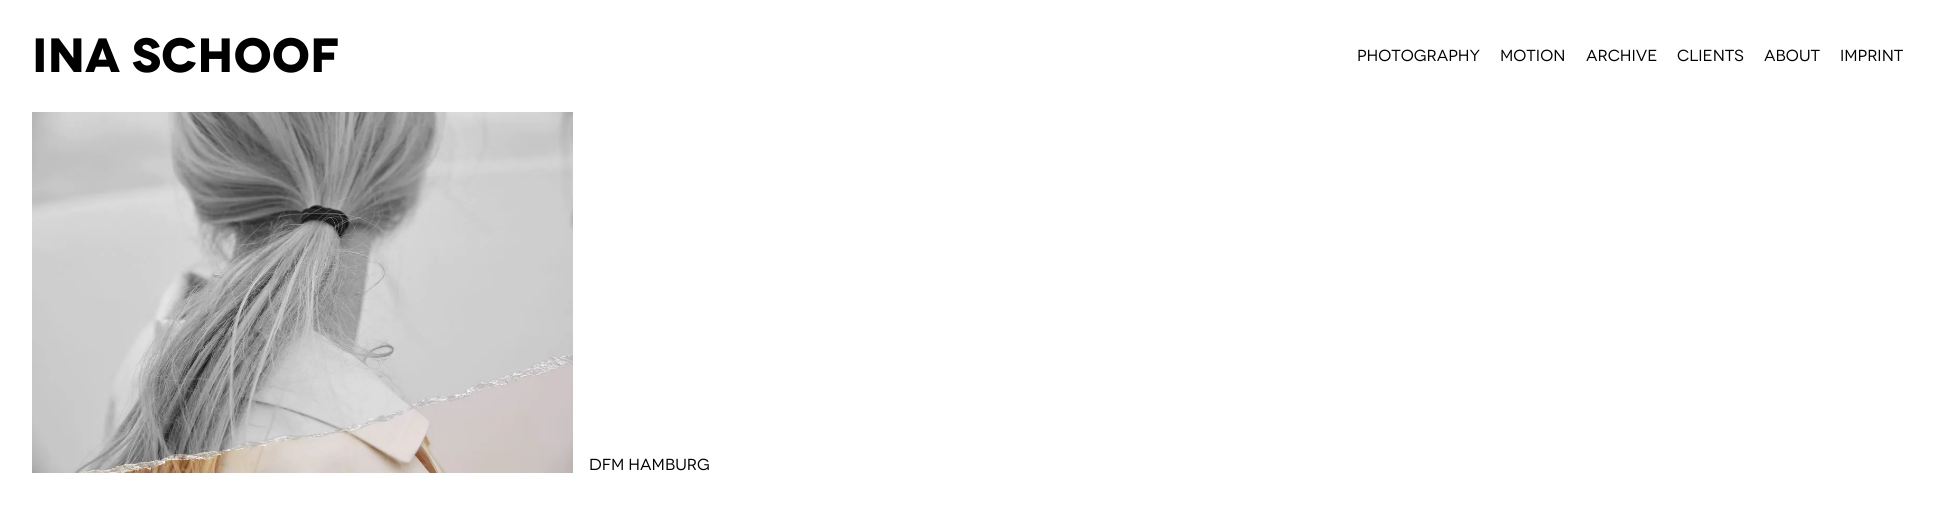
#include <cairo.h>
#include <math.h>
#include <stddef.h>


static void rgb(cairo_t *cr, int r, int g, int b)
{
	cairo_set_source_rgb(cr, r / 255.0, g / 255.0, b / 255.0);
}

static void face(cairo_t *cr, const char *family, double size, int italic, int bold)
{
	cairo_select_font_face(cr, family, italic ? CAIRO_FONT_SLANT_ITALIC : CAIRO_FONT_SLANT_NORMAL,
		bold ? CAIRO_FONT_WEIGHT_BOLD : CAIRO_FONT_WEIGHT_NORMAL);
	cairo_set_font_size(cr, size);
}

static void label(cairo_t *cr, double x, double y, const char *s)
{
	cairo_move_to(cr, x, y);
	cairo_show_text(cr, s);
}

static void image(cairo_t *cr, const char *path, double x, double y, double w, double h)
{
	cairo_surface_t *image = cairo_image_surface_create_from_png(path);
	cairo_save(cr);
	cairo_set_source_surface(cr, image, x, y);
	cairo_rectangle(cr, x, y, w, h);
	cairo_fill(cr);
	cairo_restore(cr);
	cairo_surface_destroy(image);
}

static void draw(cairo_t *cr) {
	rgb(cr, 255, 255, 255);
	cairo_paint(cr);
	face(cr, "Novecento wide", 48, 0, 1);
	rgb(cr, 0, 0, 0);
	label(cr, 32, 72, "Ina Schoof");
	face(cr, "Novecento wide", 16, 0, 0);
	label(cr, 1357, 61, "Photography");
	label(cr, 1500, 61, "Motion");
	label(cr, 1586, 61, "Archive");
	label(cr, 1677, 61, "Clients");
	label(cr, 1764, 61, "About");
	label(cr, 1840, 61, "Imprint");
	image(cr, "image0.png", 32, 112, 541, 361);
	label(cr, 589, 470, "DFM Hamburg");
}

int main(void) {
	cairo_surface_t *surface = cairo_image_surface_create(CAIRO_FORMAT_RGB24, 1935, 505);
	cairo_t *cr = cairo_create(surface);
	cairo_font_options_t *options = cairo_font_options_create();
	cairo_font_options_set_hint_metrics(options, CAIRO_HINT_METRICS_OFF);
	cairo_font_options_set_hint_style(options, CAIRO_HINT_STYLE_NONE);
	cairo_set_font_options(cr, options);
	cairo_set_miter_limit(cr, 4);
	draw(cr);
	cairo_surface_write_to_png(surface, "render.png");
	cairo_font_options_destroy(options);
	cairo_destroy(cr);
	cairo_surface_destroy(surface);
	return 0;
}
